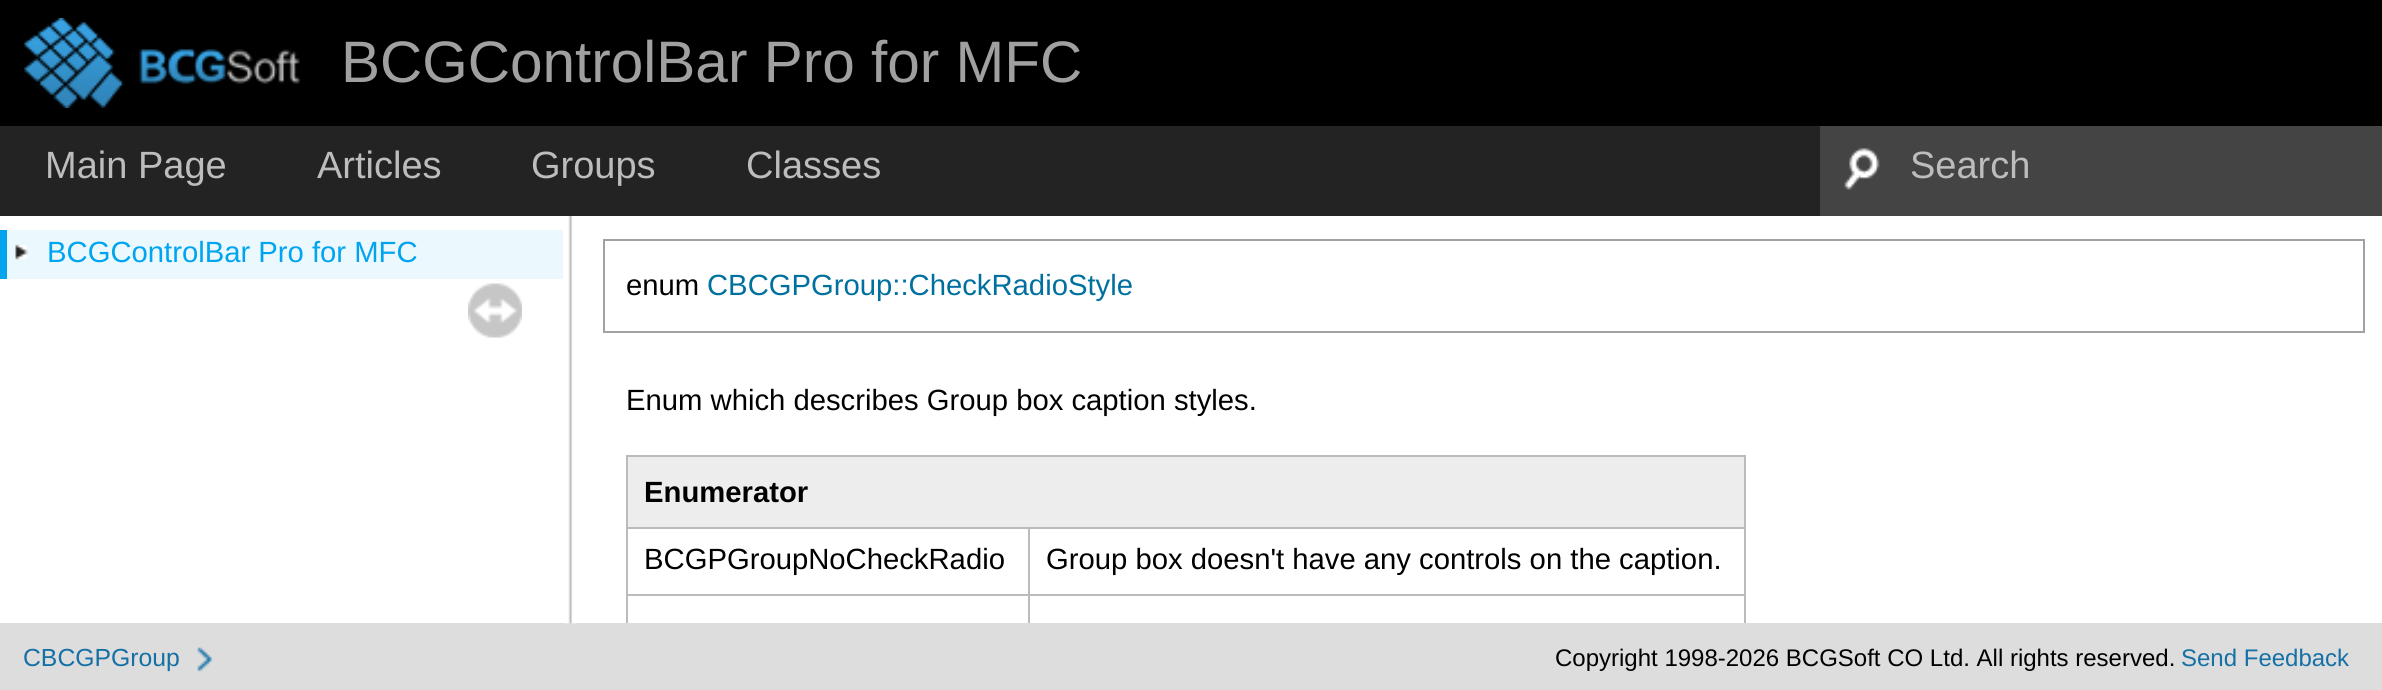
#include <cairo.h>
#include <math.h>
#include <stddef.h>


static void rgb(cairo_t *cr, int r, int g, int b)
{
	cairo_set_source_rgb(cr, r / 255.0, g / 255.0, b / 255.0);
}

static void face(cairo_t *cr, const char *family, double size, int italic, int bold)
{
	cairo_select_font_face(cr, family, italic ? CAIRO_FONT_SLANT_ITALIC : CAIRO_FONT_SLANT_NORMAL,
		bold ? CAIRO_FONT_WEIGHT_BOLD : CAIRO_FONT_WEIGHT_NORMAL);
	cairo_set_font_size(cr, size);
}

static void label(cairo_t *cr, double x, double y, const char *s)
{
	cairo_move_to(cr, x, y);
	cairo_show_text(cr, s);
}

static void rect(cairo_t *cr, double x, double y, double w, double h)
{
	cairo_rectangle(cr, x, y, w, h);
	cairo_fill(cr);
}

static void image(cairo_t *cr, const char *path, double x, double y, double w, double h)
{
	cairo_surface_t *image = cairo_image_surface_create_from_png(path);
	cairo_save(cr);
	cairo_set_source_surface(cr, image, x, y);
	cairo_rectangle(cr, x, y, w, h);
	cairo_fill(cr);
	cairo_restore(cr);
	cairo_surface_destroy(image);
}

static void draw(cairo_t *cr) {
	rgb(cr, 255, 255, 255);
	cairo_paint(cr);
	rgb(cr, 0, 0, 0);
	rect(cr, 0, 0, 2382, 126);
	image(cr, "image0.png", 24, 18, 276, 90);
	face(cr, "Liberation Sans", 58.5, 0, 0);
	rgb(cr, 160, 160, 160);
	label(cr, 341, 82, "BCGControlBar Pro for MFC");
	rgb(cr, 35, 35, 35);
	rect(cr, 0, 126, 1820, 90);
	face(cr, "Liberation Sans", 38, 0, 0);
	rgb(cr, 189, 189, 189);
	label(cr, 45, 178, "Main Page");
	label(cr, 317, 178, "Articles");
	label(cr, 531, 178, "Groups");
	label(cr, 746, 178, "Classes");
	rgb(cr, 68, 68, 68);
	rect(cr, 1820, 126, 562, 90);
	image(cr, "image1.png", 1844, 148, 36, 42);
	rgb(cr, 189, 189, 189);
	label(cr, 1910, 178, "Search");
	rgb(cr, 235, 248, 254);
	rect(cr, 7, 230, 556, 49);
	rgb(cr, 0, 164, 239);
	rect(cr, 0, 230, 7, 49);
	image(cr, "image2.png", 15, 244, 13, 16);
	face(cr, "Liberation Sans", 29.25, 0, 0);
	label(cr, 47, 262, "BCGControlBar Pro for MFC");
	image(cr, "image3.png", 468, 283, 54, 55);
	cairo_rectangle(cr, 627, 456, 1118, 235);
	rgb(cr, 187, 187, 187);
	cairo_stroke(cr);
	rgb(cr, 221, 221, 221);
	rect(cr, 0, 623, 2382, 67);
	image(cr, "image4.png", 565, 216, 11, 408);
	cairo_rectangle(cr, 604, 240, 1760, 92);
	rgb(cr, 162, 162, 162);
	cairo_stroke(cr);
	rgb(cr, 0, 0, 0);
	label(cr, 626, 295, "enum");
	rgb(cr, 0, 112, 159);
	label(cr, 707, 295, "CBCGPGroup::CheckRadioStyle");
	rgb(cr, 0, 0, 0);
	label(cr, 626, 410, "Enum which describes Group box caption styles.");
	rgb(cr, 237, 237, 237);
	rect(cr, 628, 457, 1116, 70);
	rgb(cr, 187, 187, 187);
	rect(cr, 628, 527, 1116, 2);
	face(cr, "Liberation Sans", 29.25, 0, 1);
	rgb(cr, 0, 0, 0);
	label(cr, 644, 502, "Enumerator");
	rgb(cr, 187, 187, 187);
	rect(cr, 1028, 529, 2, 94);
	rect(cr, 628, 594, 1116, 2);
	face(cr, "Liberation Sans", 29.25, 0, 0);
	rgb(cr, 0, 0, 0);
	label(cr, 644, 569, "BCGPGroupNoCheckRadio");
	label(cr, 1046, 569, "Group box doesn't have any controls on the caption.");
	image(cr, "image5.png", 197, 647, 16, 25);
	face(cr, "Liberation Sans", 24.75, 0, 0);
	rgb(cr, 21, 112, 166);
	label(cr, 23, 666, "CBCGPGroup");
	face(cr, "Liberation Sans", 24, 0, 0);
	rgb(cr, 0, 0, 0);
	label(cr, 1555, 666, "Copyright 1998-2026 BCGSoft CO Ltd. All rights reserved.");
	rgb(cr, 21, 112, 166);
	label(cr, 2181, 666, "Send Feedback");
}

int main(void) {
	cairo_surface_t *surface = cairo_image_surface_create(CAIRO_FORMAT_RGB24, 2382, 690);
	cairo_t *cr = cairo_create(surface);
	cairo_font_options_t *options = cairo_font_options_create();
	cairo_font_options_set_hint_metrics(options, CAIRO_HINT_METRICS_OFF);
	cairo_font_options_set_hint_style(options, CAIRO_HINT_STYLE_NONE);
	cairo_set_font_options(cr, options);
	cairo_set_miter_limit(cr, 4);
	draw(cr);
	cairo_surface_write_to_png(surface, "render.png");
	cairo_font_options_destroy(options);
	cairo_destroy(cr);
	cairo_surface_destroy(surface);
	return 0;
}
